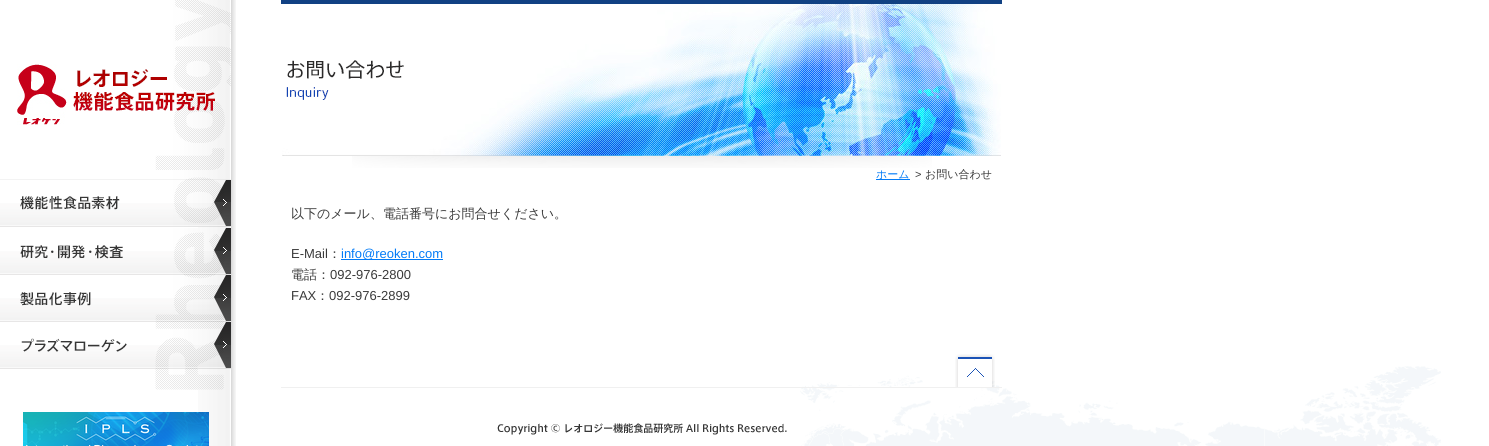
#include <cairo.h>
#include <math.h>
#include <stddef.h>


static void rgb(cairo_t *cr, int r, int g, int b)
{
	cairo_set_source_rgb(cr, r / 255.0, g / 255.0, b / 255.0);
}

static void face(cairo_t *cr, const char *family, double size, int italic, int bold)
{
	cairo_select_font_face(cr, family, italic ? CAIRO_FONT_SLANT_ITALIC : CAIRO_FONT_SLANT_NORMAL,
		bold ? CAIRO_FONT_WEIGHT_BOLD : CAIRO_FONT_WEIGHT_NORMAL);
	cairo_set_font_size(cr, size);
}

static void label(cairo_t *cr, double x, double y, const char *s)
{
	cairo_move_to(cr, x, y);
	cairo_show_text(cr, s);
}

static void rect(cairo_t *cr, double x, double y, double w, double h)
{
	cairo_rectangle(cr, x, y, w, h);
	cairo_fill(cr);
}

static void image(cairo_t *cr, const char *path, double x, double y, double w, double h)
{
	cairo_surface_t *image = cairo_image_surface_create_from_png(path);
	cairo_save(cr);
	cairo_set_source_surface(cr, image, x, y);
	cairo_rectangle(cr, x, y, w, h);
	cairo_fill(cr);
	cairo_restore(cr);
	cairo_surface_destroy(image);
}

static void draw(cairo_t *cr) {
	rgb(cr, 255, 255, 255);
	cairo_paint(cr);
	image(cr, "image0.png", 198, 0, 38, 446);
	image(cr, "image1.png", 800, 366, 641, 80);
	image(cr, "image2.png", 0, 0, 231, 180);
	image(cr, "image3.png", 155, 369, 69, 21);
	image(cr, "image4.png", 0, 180, 231, 47);
	image(cr, "image5.png", 0, 228, 231, 47);
	image(cr, "image6.png", 0, 275, 231, 47);
	image(cr, "image7.png", 0, 322, 231, 47);
	image(cr, "image8.png", 23, 412, 186, 34);
	rgb(cr, 17, 65, 131);
	rect(cr, 281, 0, 721, 4);
	image(cr, "image9.png", 282, 4, 719, 152);
	image(cr, "image10.png", 286, 60, 118, 40);
	image(cr, "image11.png", 352, 156, 580, 12);
	rgb(cr, 2, 123, 247);
	rect(cr, 876, 179, 34, 1);
	face(cr, "WenQuanYi Zen Hei Medium", 11, 0, 0);
	label(cr, 876, 178, "ホーム");
	face(cr, "Liberation Sans", 11, 0, 0);
	rgb(cr, 58, 58, 58);
	label(cr, 915, 178, ">");
	face(cr, "WenQuanYi Zen Hei Medium", 11, 0, 0);
	label(cr, 925, 178, "お問い合わせ");
	face(cr, "WenQuanYi Zen Hei Medium", 13, 0, 0);
	label(cr, 291, 218, "以下のメール、電話番号にお問合せください。");
	face(cr, "Liberation Sans", 13, 0, 0);
	label(cr, 291, 258, "E-Mail");
	face(cr, "WenQuanYi Zen Hei Medium", 13, 0, 0);
	label(cr, 328, 258, "：");
	rgb(cr, 2, 123, 247);
	rect(cr, 341, 259, 102, 1);
	face(cr, "Liberation Sans", 13, 0, 0);
	label(cr, 341, 258, "info@reoken.com");
	face(cr, "WenQuanYi Zen Hei Medium", 13, 0, 0);
	rgb(cr, 58, 58, 58);
	label(cr, 291, 279, "電話：");
	face(cr, "Liberation Sans", 13, 0, 0);
	label(cr, 330, 279, "092-976-2800");
	label(cr, 291, 300, "FAX");
	face(cr, "WenQuanYi Zen Hei Medium", 13, 0, 0);
	label(cr, 316, 300, "：");
	face(cr, "Liberation Sans", 13, 0, 0);
	label(cr, 329, 300, "092-976-2899");
	rgb(cr, 240, 240, 240);
	rect(cr, 281, 387, 721, 1);
	image(cr, "image12.png", 955, 354, 40, 33);
	image(cr, "image13.png", 497, 423, 290, 12);
}

int main(void) {
	cairo_surface_t *surface = cairo_image_surface_create(CAIRO_FORMAT_RGB24, 1489, 446);
	cairo_t *cr = cairo_create(surface);
	cairo_font_options_t *options = cairo_font_options_create();
	cairo_font_options_set_hint_metrics(options, CAIRO_HINT_METRICS_OFF);
	cairo_font_options_set_hint_style(options, CAIRO_HINT_STYLE_NONE);
	cairo_set_font_options(cr, options);
	cairo_set_miter_limit(cr, 4);
	draw(cr);
	cairo_surface_write_to_png(surface, "render.png");
	cairo_font_options_destroy(options);
	cairo_destroy(cr);
	cairo_surface_destroy(surface);
	return 0;
}
